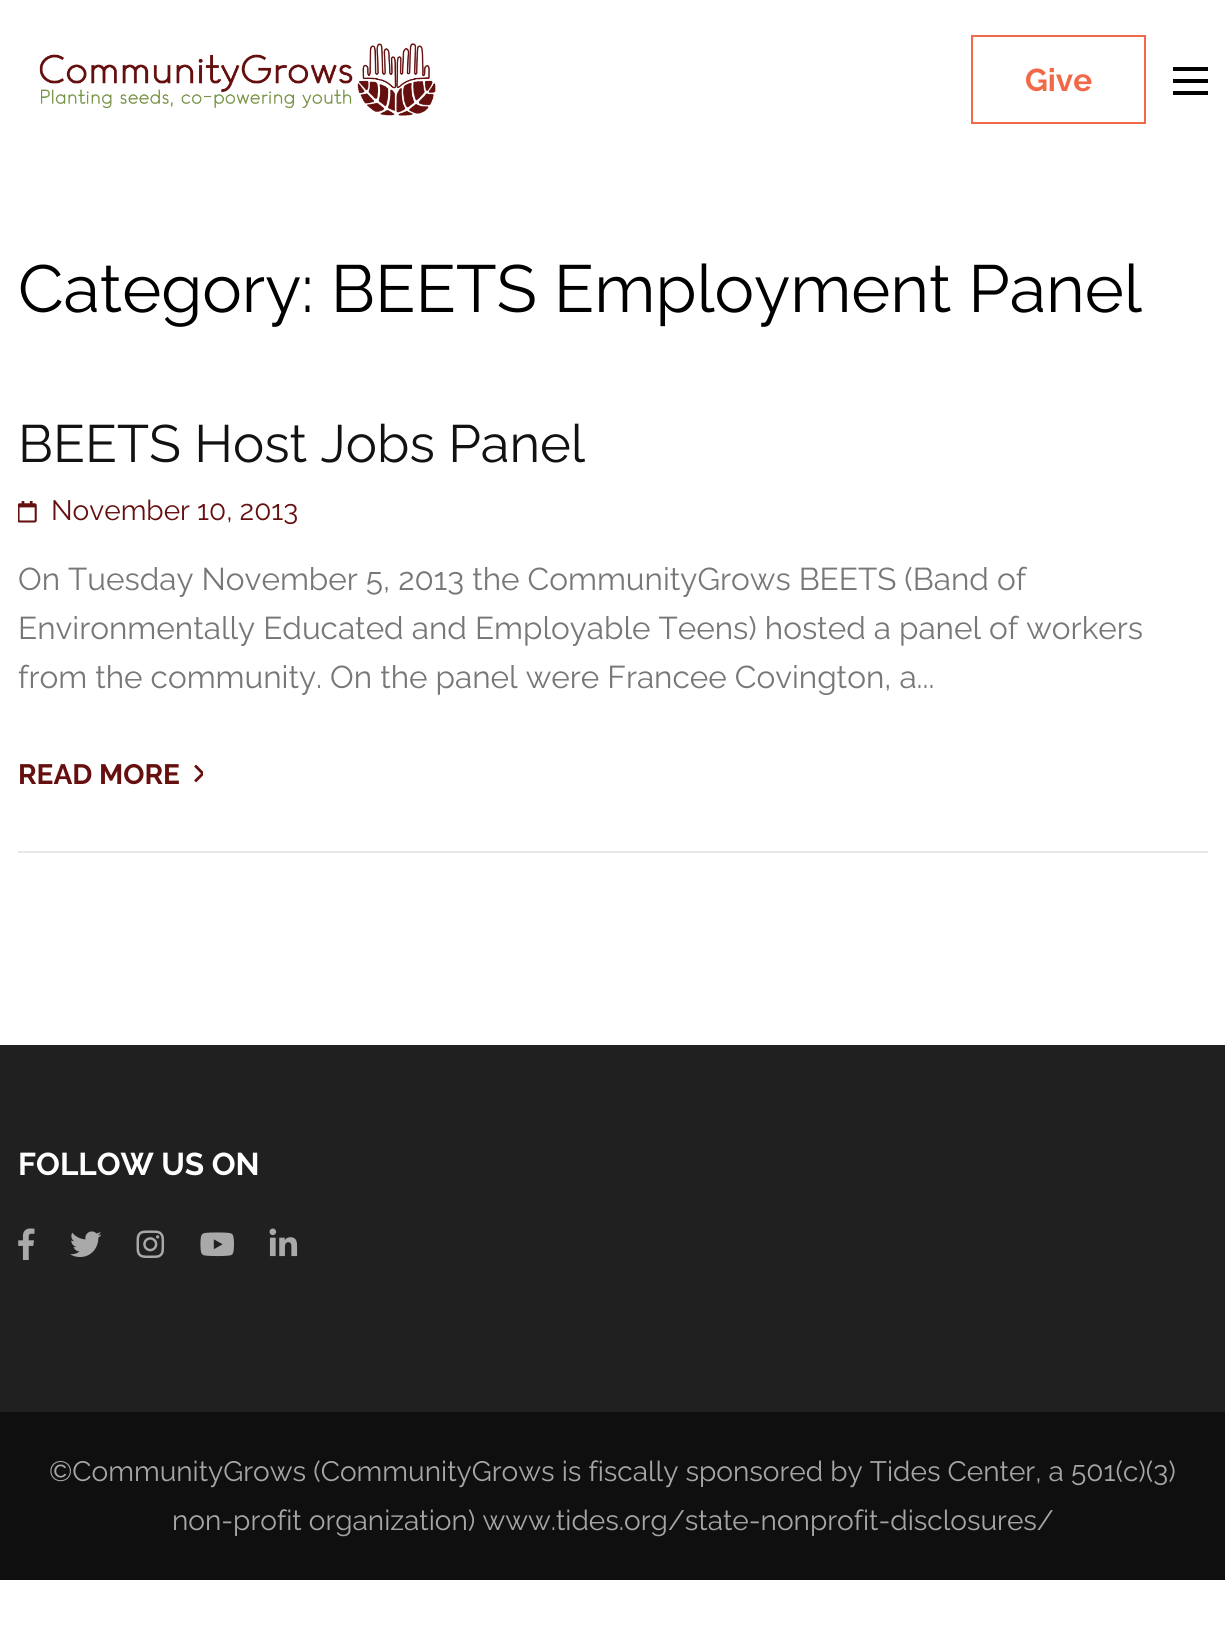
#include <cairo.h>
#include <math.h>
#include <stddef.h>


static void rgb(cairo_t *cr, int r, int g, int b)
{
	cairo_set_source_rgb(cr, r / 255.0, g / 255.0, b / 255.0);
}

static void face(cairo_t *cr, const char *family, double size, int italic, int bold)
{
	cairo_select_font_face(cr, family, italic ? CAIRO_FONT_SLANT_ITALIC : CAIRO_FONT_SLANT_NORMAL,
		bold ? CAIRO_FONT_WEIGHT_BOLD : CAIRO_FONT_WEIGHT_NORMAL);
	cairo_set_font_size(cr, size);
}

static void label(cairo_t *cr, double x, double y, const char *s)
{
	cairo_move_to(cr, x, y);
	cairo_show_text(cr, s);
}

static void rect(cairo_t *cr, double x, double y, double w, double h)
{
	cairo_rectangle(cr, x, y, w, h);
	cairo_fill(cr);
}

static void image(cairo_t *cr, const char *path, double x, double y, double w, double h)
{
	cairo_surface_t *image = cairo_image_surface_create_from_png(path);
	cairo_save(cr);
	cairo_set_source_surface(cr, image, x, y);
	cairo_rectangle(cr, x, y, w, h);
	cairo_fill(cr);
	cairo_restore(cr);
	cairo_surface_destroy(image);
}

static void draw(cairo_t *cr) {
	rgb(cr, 255, 255, 255);
	cairo_paint(cr);
	image(cr, "image0.png", 39, 43, 397, 73);
	cairo_rectangle(cr, 972, 36, 173, 87);
	rgb(cr, 241, 105, 73);
	cairo_stroke(cr);
	face(cr, "Raleway", 31.5, 0, 1);
	label(cr, 1025, 91, "Give");
	rgb(cr, 0, 0, 0);
	rect(cr, 1173, 67, 35, 4);
	rect(cr, 1173, 79, 35, 4);
	rect(cr, 1173, 91, 35, 4);
	face(cr, "Raleway", 66.5, 0, 0);
	label(cr, 18, 312, "Category: BEETS Employment Panel");
	rgb(cr, 232, 232, 232);
	rect(cr, 18, 851, 1190, 2);
	face(cr, "Raleway", 52.5, 0, 0);
	rgb(cr, 18, 18, 18);
	label(cr, 18, 462, "BEETS Host Jobs Panel");
	image(cr, "image1.png", 18, 501, 19, 22);
	face(cr, "Raleway", 28, 0, 0);
	rgb(cr, 102, 15, 15);
	label(cr, 51, 520, "November 10, 2013");
	face(cr, "Raleway", 31.5, 0, 0);
	rgb(cr, 119, 119, 119);
	label(cr, 18, 590, "On Tuesday November 5, 2013 the CommunityGrows BEETS (Band of");
	label(cr, 18, 639, "Environmentally Educated and Employable Teens) hosted a panel of workers");
	label(cr, 18, 688, "from the community. On the panel were Francee Covington, a...");
	face(cr, "Raleway", 28, 0, 1);
	rgb(cr, 102, 15, 15);
	label(cr, 18, 784, "READ MORE");
	image(cr, "image2.png", 194, 764, 9, 19);
	rgb(cr, 32, 32, 32);
	rect(cr, 0, 1045, 1225, 367);
	face(cr, "Raleway", 31.5, 0, 1);
	rgb(cr, 255, 255, 255);
	label(cr, 18, 1175, "FOLLOW US ON");
	image(cr, "image3.png", 18, 1228, 17, 32);
	image(cr, "image4.png", 70, 1231, 32, 26);
	image(cr, "image5.png", 136, 1230, 29, 28);
	image(cr, "image6.png", 200, 1232, 34, 25);
	image(cr, "image7.png", 269, 1228, 29, 29);
	rgb(cr, 15, 15, 15);
	rect(cr, 0, 1412, 1225, 168);
	face(cr, "Raleway", 28, 0, 0);
	rgb(cr, 166, 166, 166);
	label(cr, 49, 1481, "©CommunityGrows (CommunityGrows is fiscally sponsored by Tides Center, a 501(c)(3)");
	label(cr, 172, 1530, "non-profit organization) www.tides.org/state-nonprofit-disclosures/");
}

int main(void) {
	cairo_surface_t *surface = cairo_image_surface_create(CAIRO_FORMAT_RGB24, 1225, 1636);
	cairo_t *cr = cairo_create(surface);
	cairo_font_options_t *options = cairo_font_options_create();
	cairo_font_options_set_hint_metrics(options, CAIRO_HINT_METRICS_OFF);
	cairo_font_options_set_hint_style(options, CAIRO_HINT_STYLE_NONE);
	cairo_set_font_options(cr, options);
	cairo_set_miter_limit(cr, 4);
	draw(cr);
	cairo_surface_write_to_png(surface, "render.png");
	cairo_font_options_destroy(options);
	cairo_destroy(cr);
	cairo_surface_destroy(surface);
	return 0;
}
